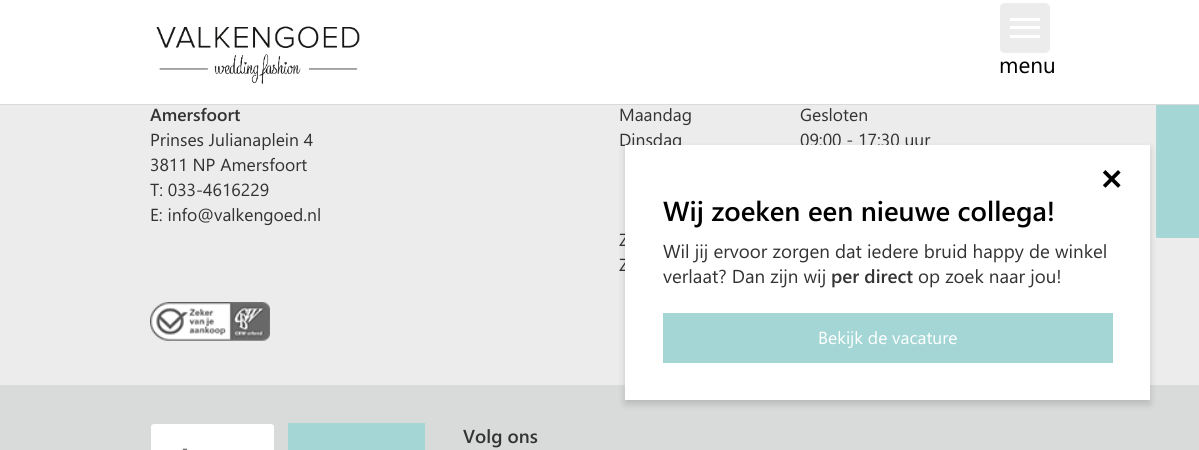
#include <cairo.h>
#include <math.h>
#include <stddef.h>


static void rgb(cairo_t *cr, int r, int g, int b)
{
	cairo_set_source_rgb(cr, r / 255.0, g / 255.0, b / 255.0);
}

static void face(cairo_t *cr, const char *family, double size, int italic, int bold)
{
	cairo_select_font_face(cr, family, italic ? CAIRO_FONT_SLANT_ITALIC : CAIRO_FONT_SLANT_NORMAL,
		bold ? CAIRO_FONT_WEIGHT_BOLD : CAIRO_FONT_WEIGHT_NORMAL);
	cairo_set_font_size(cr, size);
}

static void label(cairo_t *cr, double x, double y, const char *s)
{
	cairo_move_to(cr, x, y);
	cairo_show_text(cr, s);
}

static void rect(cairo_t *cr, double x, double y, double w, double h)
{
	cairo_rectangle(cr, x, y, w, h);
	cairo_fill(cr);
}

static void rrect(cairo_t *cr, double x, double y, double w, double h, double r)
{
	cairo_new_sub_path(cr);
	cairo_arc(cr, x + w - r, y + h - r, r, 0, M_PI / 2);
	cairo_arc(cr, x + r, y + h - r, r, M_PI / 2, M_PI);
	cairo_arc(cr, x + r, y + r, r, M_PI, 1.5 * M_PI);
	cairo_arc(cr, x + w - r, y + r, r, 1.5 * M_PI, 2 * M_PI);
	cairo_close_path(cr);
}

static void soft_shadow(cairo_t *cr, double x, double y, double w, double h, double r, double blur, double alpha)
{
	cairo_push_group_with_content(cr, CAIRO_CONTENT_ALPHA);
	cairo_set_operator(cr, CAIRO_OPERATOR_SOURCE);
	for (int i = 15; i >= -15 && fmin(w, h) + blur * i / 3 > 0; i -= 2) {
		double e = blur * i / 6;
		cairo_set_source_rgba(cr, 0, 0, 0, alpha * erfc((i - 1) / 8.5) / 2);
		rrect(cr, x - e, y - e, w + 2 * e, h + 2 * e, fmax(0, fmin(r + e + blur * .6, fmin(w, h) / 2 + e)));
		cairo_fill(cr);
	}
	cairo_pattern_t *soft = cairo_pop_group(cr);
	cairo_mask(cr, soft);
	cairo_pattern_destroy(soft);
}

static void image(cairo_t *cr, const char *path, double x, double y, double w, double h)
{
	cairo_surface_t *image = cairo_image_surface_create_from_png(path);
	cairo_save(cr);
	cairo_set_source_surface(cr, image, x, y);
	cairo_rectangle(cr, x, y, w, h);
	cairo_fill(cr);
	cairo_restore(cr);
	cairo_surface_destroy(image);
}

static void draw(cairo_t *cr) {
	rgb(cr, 236, 236, 237);
	cairo_paint(cr);
	rgb(cr, 255, 255, 255);
	rect(cr, 0, 0, 1199, 104);
	rgb(cr, 217, 218, 218);
	rect(cr, 0, 104, 1199, 1);
	image(cr, "image0.png", 156, 26, 204, 58);
	rgb(cr, 236, 236, 237);
	rrect(cr, 1000, 3, 50, 50, 5);
	cairo_fill(cr);
	rgb(cr, 255, 255, 255);
	rect(cr, 1010, 18, 30, 3);
	rect(cr, 1010, 26, 30, 3);
	rect(cr, 1010, 35, 30, 3);
	face(cr, "Segoe UI", 22.5, 0, 0);
	rgb(cr, 0, 0, 0);
	label(cr, 999, 73, "menu");
	face(cr, "Segoe UI SemiBold", 17.5, 0, 0);
	rgb(cr, 51, 51, 51);
	label(cr, 150, 121, "Amersfoort");
	face(cr, "Segoe UI", 17.5, 0, 0);
	label(cr, 150, 146, "Prinses Julianaplein 4");
	label(cr, 150, 171, "3811 NP Amersfoort");
	label(cr, 150, 196, "T: 033-4616229");
	label(cr, 150, 221, "E: info@valkengoed.nl");
	label(cr, 619, 121, "Maandag");
	label(cr, 800, 121, "Gesloten");
	label(cr, 619, 146, "Dinsdag");
	label(cr, 800, 146, "09:00 - 17:30 uur");
	label(cr, 619, 246, "Z");
	label(cr, 619, 271, "Z");
	image(cr, "image1.png", 150, 302, 120, 39);
	rgb(cr, 217, 218, 218);
	rect(cr, 0, 385, 1199, 65);
	face(cr, "Segoe UI SemiBold", 18.75, 0, 0);
	rgb(cr, 51, 51, 51);
	label(cr, 463, 443, "Volg ons");
	rgb(cr, 255, 255, 255);
	rrect(cr, 150.5, 423.5, 124, 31, 3.5);
	cairo_fill_preserve(cr);
	rgb(cr, 217, 218, 218);
	cairo_set_line_width(cr, 1);
	cairo_stroke(cr);
	face(cr, "Liberation Sans", 17.5, 0, 0);
	rgb(cr, 117, 117, 117);
	label(cr, 182, 454, "-");
	rgb(cr, 164, 214, 213);
	rect(cr, 288, 423, 137, 27);
	image(cr, "image2.png", 1156, 105, 43, 133);
	rgb(cr, 0, 0, 0);
	soft_shadow(cr, 625, 149, 525, 255, 0, 4, 0.16);
	rgb(cr, 255, 255, 255);
	rect(cr, 625, 145, 525, 255);
	face(cr, "Segoe UI SemiBold", 46, 0, 0);
	rgb(cr, 0, 0, 0);
	cairo_save(cr);
	cairo_translate(cr, 1091, 177);
	cairo_rotate(cr, 45 * M_PI / 180);
	label(cr, 0, 0, "+");
	cairo_restore(cr);
	face(cr, "Segoe UI SemiBold", 27.5, 0, 0);
	label(cr, 663, 221, "Wij zoeken een nieuwe collega!");
	face(cr, "Segoe UI", 18.75, 0, 0);
	rgb(cr, 51, 51, 51);
	label(cr, 663, 258, "Wil jij ervoor zorgen dat iedere bruid happy de winkel");
	label(cr, 663, 283, "verlaat? Dan zijn wij");
	face(cr, "Segoe UI SemiBold", 18.75, 0, 0);
	label(cr, 831, 283, "per direct");
	face(cr, "Segoe UI", 18.75, 0, 0);
	label(cr, 918, 283, "op zoek naar jou!");
	rgb(cr, 164, 214, 213);
	rect(cr, 663, 313, 450, 50);
	face(cr, "Segoe UI", 17.5, 0, 0);
	rgb(cr, 255, 255, 255);
	label(cr, 818, 344, "Bekijk de vacature");
}

int main(void) {
	cairo_surface_t *surface = cairo_image_surface_create(CAIRO_FORMAT_RGB24, 1199, 450);
	cairo_t *cr = cairo_create(surface);
	cairo_font_options_t *options = cairo_font_options_create();
	cairo_font_options_set_hint_metrics(options, CAIRO_HINT_METRICS_OFF);
	cairo_font_options_set_hint_style(options, CAIRO_HINT_STYLE_NONE);
	cairo_set_font_options(cr, options);
	cairo_set_miter_limit(cr, 4);
	draw(cr);
	cairo_surface_write_to_png(surface, "render.png");
	cairo_font_options_destroy(options);
	cairo_destroy(cr);
	cairo_surface_destroy(surface);
	return 0;
}
